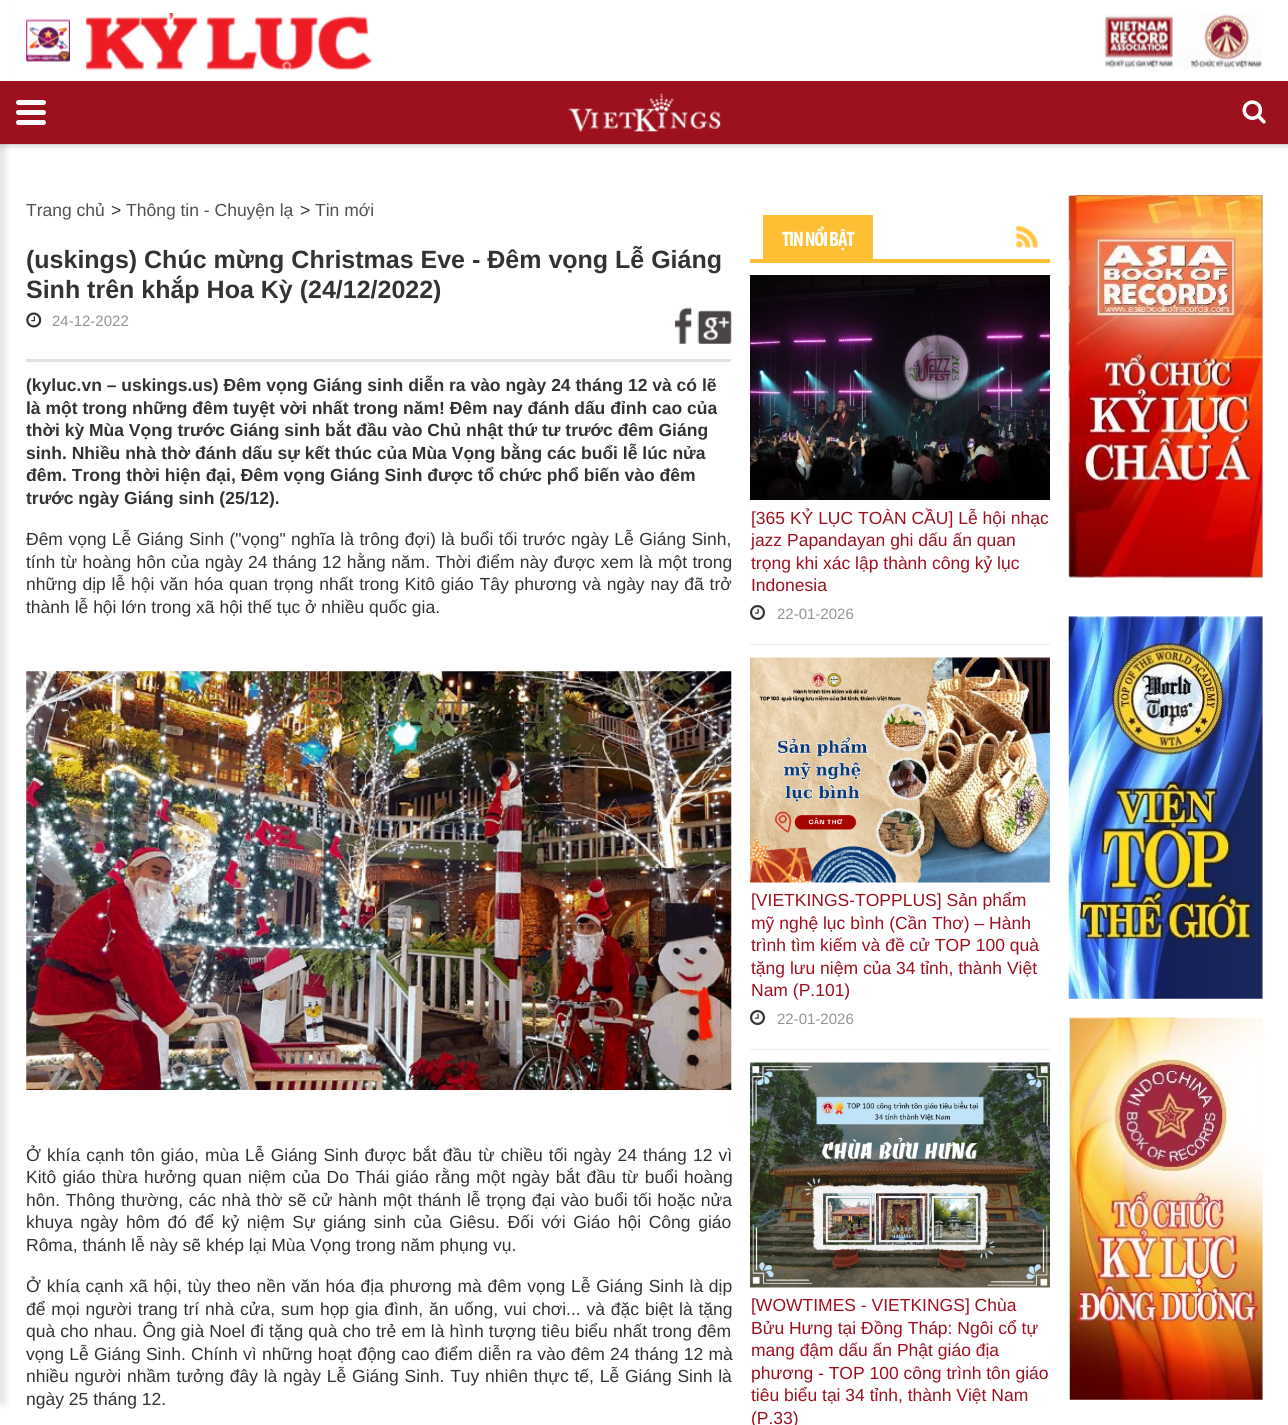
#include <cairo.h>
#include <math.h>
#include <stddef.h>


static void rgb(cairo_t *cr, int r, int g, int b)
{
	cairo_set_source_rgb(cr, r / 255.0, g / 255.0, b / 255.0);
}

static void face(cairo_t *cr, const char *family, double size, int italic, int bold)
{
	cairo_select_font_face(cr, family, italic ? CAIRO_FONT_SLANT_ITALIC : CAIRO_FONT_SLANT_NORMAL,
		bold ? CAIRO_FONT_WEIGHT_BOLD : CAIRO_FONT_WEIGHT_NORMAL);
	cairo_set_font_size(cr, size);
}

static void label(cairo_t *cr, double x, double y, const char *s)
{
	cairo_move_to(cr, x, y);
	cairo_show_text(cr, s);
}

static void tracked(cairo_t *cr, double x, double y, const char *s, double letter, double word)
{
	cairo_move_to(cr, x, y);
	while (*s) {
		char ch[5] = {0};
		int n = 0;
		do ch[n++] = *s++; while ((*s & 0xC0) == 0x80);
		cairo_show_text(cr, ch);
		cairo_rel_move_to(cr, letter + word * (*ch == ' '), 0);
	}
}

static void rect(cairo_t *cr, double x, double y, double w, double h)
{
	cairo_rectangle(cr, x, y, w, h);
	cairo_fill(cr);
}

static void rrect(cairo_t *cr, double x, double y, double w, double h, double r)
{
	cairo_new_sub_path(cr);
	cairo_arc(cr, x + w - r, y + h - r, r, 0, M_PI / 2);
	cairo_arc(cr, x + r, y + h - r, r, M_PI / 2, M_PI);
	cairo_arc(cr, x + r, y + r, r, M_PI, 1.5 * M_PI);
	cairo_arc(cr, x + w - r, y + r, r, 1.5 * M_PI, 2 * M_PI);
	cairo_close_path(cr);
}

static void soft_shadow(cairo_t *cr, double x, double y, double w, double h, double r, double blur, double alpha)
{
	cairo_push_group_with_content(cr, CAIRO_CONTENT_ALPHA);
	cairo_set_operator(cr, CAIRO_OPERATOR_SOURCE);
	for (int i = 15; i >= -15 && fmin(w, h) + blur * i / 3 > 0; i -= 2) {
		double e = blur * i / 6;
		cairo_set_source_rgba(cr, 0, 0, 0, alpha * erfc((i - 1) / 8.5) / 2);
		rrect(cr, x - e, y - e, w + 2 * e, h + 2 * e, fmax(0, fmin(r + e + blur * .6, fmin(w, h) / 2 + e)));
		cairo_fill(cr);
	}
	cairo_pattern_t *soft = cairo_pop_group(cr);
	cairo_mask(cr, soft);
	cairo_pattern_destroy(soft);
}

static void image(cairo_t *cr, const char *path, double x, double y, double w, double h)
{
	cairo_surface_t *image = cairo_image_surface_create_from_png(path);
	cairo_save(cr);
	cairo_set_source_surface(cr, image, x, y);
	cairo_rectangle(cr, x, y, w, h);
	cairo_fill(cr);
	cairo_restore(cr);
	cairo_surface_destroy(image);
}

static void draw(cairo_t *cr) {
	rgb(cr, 255, 255, 255);
	cairo_paint(cr);
	image(cr, "image0.png", 0, 144, 1288, 1);
	rgb(cr, 0, 0, 0);
	soft_shadow(cr, -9, -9, 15, 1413, 0, 3, 0.1);
	soft_shadow(cr, 0, 85, 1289, 63, 0, 2, 0.1);
	rgb(cr, 157, 17, 30);
	rect(cr, 0, 81, 1288, 63);
	image(cr, "image1.png", 568, 93, 153, 39);
	rgb(cr, 255, 255, 255);
	rrect(cr, 16, 110, 30, 5, 2.5);
	cairo_fill(cr);
	rrect(cr, 16, 100, 30, 5, 2.5);
	cairo_fill(cr);
	rrect(cr, 16, 120, 30, 5, 2.5);
	cairo_fill(cr);
	rect(cr, 0, 0, 10, 81);
	image(cr, "image2.png", 26, 19, 44, 43);
	image(cr, "image3.png", 86, 13, 286, 57);
	image(cr, "image4.png", 1104, 13, 158, 56);
	image(cr, "image5.png", 1242, 100, 24, 24);
	face(cr, "Liberation Sans", 17.5, 0, 0);
	rgb(cr, 80, 80, 80);
	label(cr, 26, 216, "Trang chủ");
	rgb(cr, 51, 51, 51);
	label(cr, 111, 216, ">");
	rgb(cr, 80, 80, 80);
	label(cr, 126, 216, "Thông tin - Chuyện lạ");
	rgb(cr, 51, 51, 51);
	label(cr, 300, 216, ">");
	rgb(cr, 80, 80, 80);
	label(cr, 315, 216, "Tin mới");
	rgb(cr, 226, 226, 226);
	rect(cr, 26, 359, 705, 3);
	face(cr, "Liberation Sans", 25, 0, 1);
	rgb(cr, 51, 51, 51);
	label(cr, 26, 268, "(uskings) Chúc mừng Christmas Eve - Đêm vọng Lễ Giáng");
	label(cr, 26, 298, "Sinh trên khắp Hoa Kỳ (24/12/2022)");
	image(cr, "image6.png", 26, 312, 16, 16);
	face(cr, "Liberation Sans", 15, 0, 0);
	rgb(cr, 148, 148, 148);
	label(cr, 52, 326, "24-12-2022");
	image(cr, "image7.png", 675, 307, 17, 37);
	image(cr, "image8.png", 697, 310, 35, 34);
	face(cr, "Liberation Sans", 17.5, 0, 1);
	rgb(cr, 51, 51, 51);
	label(cr, 26, 391, "(kyluc.vn – uskings.us) Đêm vọng Giáng sinh diễn ra vào ngày 24 tháng 12 và có lẽ");
	label(cr, 26, 414, "là một trong những đêm tuyệt vời nhất trong năm! Đêm nay đánh dấu đỉnh cao của");
	label(cr, 26, 436, "thời kỳ Mùa Vọng trước Giáng sinh bắt đầu vào Chủ nhật thứ tư trước đêm Giáng");
	label(cr, 26, 459, "sinh. Nhiều nhà thờ đánh dấu sự kết thúc của Mùa Vọng bằng các buổi lễ lúc nửa");
	label(cr, 26, 481, "đêm. Trong thời hiện đại, Đêm vọng Giáng Sinh được tổ chức phổ biến vào đêm");
	label(cr, 26, 504, "trước ngày Giáng sinh (25/12).");
	face(cr, "Liberation Sans", 17.5, 0, 0);
	tracked(cr, 26, 545, "Đêm vọng Lễ Giáng Sinh (\"vọng\" nghĩa là trông đợi) là buổi tối trước ngày Lễ Giáng Sinh,", 0, 0.6);
	tracked(cr, 26, 568, "tính từ hoàng hôn của ngày 24 tháng 12 hằng năm. Thời điểm này được xem là một trong", 0, 0.5);
	tracked(cr, 26, 590, "những dịp lễ hội văn hóa quan trọng nhất trong Kitô giáo Tây phương và ngày nay đã trở", 0, 0.9);
	label(cr, 26, 613, "thành lễ hội lớn trong xã hội thế tục ở nhiều quốc gia.");
	image(cr, "image9.png", 26, 671, 706, 419);
	tracked(cr, 26, 1161, "Ở khía cạnh tôn giáo, mùa Lễ Giáng Sinh được bắt đầu từ chiều tối ngày 24 tháng 12 vì", 0, 1.25);
	tracked(cr, 26, 1183, "Kitô giáo thừa hưởng quan niệm của Do Thái giáo rằng một ngày bắt đầu từ buổi hoàng", 0, 1.4);
	tracked(cr, 26, 1206, "hôn. Thông thường, các nhà thờ sẽ cử hành một thánh lễ trọng đại vào buổi tối hoặc nửa", 0, 0.75);
	tracked(cr, 26, 1228, "khuya ngày hôm đó để kỷ niệm Sự giáng sinh của Giêsu. Đối với Giáo hội Công giáo", 0, 2.75);
	label(cr, 26, 1251, "Rôma, thánh lễ này sẽ khép lại Mùa Vọng trong năm phụng vụ.");
	tracked(cr, 26, 1292, "Ở khía cạnh xã hội, tùy theo nền văn hóa địa phương mà đêm vọng Lễ Giáng Sinh là dịp", 0, 0.9);
	tracked(cr, 26, 1315, "để mọi người trang trí nhà cửa, sum họp gia đình, ăn uống, vui chơi... và đặc biệt là tặng", 0, 1);
	tracked(cr, 26, 1337, "quà cho nhau. Ông già Noel đi tặng quà cho trẻ em là hình tượng tiêu biểu nhất trong đêm", 0, 0.25);
	tracked(cr, 26, 1360, "vọng Lễ Giáng Sinh. Chính vì những hoạt động cao điểm diễn ra vào đêm 24 tháng 12 mà", 0, 0.4);
	tracked(cr, 26, 1382, "nhiều người nhầm tưởng đây là ngày Lễ Giáng Sinh. Tuy nhiên thực tế, Lễ Giáng Sinh là", 0, 0.9);
	label(cr, 26, 1405, "ngày 25 tháng 12.");
	rgb(cr, 255, 191, 52);
	rect(cr, 750, 259, 300, 4);
	rect(cr, 763, 215, 110, 44);
	face(cr, "Myriad", 21, 0, 1);
	rgb(cr, 255, 255, 255);
	tracked(cr, 782, 246, "TIN NỔI BẬT", -1.25, 0);
	image(cr, "image10.png", 1016, 226, 22, 22);
	rgb(cr, 237, 237, 237);
	rect(cr, 750, 644, 300, 1);
	image(cr, "image11.png", 750, 275, 300, 225);
	face(cr, "Liberation Sans", 17.5, 0, 0);
	rgb(cr, 157, 17, 30);
	label(cr, 751, 524, "[365 KỶ LỤC TOÀN CẦU] Lễ hội nhạc");
	label(cr, 751, 546, "jazz Papandayan ghi dấu ấn quan");
	label(cr, 751, 569, "trọng khi xác lập thành công kỷ lục");
	label(cr, 751, 591, "Indonesia");
	image(cr, "image12.png", 750, 605, 15, 15);
	face(cr, "Liberation Sans", 15, 0, 0);
	rgb(cr, 148, 148, 148);
	label(cr, 777, 619, "22-01-2026");
	rgb(cr, 237, 237, 237);
	rect(cr, 750, 1049, 300, 1);
	image(cr, "image13.png", 750, 657, 300, 226);
	face(cr, "Liberation Sans", 17.5, 0, 0);
	rgb(cr, 157, 17, 30);
	label(cr, 751, 906, "[VIETKINGS-TOPPLUS] Sản phẩm");
	label(cr, 751, 929, "mỹ nghệ lục bình (Cần Thơ) – Hành");
	label(cr, 751, 951, "trình tìm kiếm và đề cử TOP 100 quà");
	label(cr, 751, 974, "tặng lưu niệm của 34 tỉnh, thành Việt");
	label(cr, 751, 996, "Nam (P.101)");
	image(cr, "image12.png", 750, 1010, 15, 15);
	face(cr, "Liberation Sans", 15, 0, 0);
	rgb(cr, 148, 148, 148);
	label(cr, 777, 1024, "22-01-2026");
	image(cr, "image14.png", 750, 1062, 300, 226);
	face(cr, "Liberation Sans", 17.5, 0, 0);
	rgb(cr, 157, 17, 30);
	label(cr, 751, 1311, "[WOWTIMES - VIETKINGS] Chùa");
	label(cr, 751, 1334, "Bửu Hưng tại Đồng Tháp: Ngôi cổ tự");
	label(cr, 751, 1356, "mang đậm dấu ấn Phật giáo địa");
	label(cr, 751, 1379, "phương - TOP 100 công trình tôn giáo");
	label(cr, 751, 1401, "tiêu biểu tại 34 tỉnh, thành Việt Nam");
	label(cr, 751, 1424, "(P.33)");
	rgb(cr, 248, 248, 248);
	rect(cr, 1069, 195, 194, 383);
	image(cr, "image15.png", 1068, 195, 195, 383);
	rect(cr, 1069, 616, 194, 383);
	image(cr, "image16.png", 1068, 616, 195, 383);
	rect(cr, 1262, 1018, 1, 382);
	image(cr, "image17.png", 1068, 1017, 195, 383);
}

int main(void) {
	cairo_surface_t *surface = cairo_image_surface_create(CAIRO_FORMAT_RGB24, 1288, 1425);
	cairo_t *cr = cairo_create(surface);
	cairo_font_options_t *options = cairo_font_options_create();
	cairo_font_options_set_hint_metrics(options, CAIRO_HINT_METRICS_OFF);
	cairo_font_options_set_hint_style(options, CAIRO_HINT_STYLE_NONE);
	cairo_set_font_options(cr, options);
	cairo_set_miter_limit(cr, 4);
	draw(cr);
	cairo_surface_write_to_png(surface, "render.png");
	cairo_font_options_destroy(options);
	cairo_destroy(cr);
	cairo_surface_destroy(surface);
	return 0;
}
